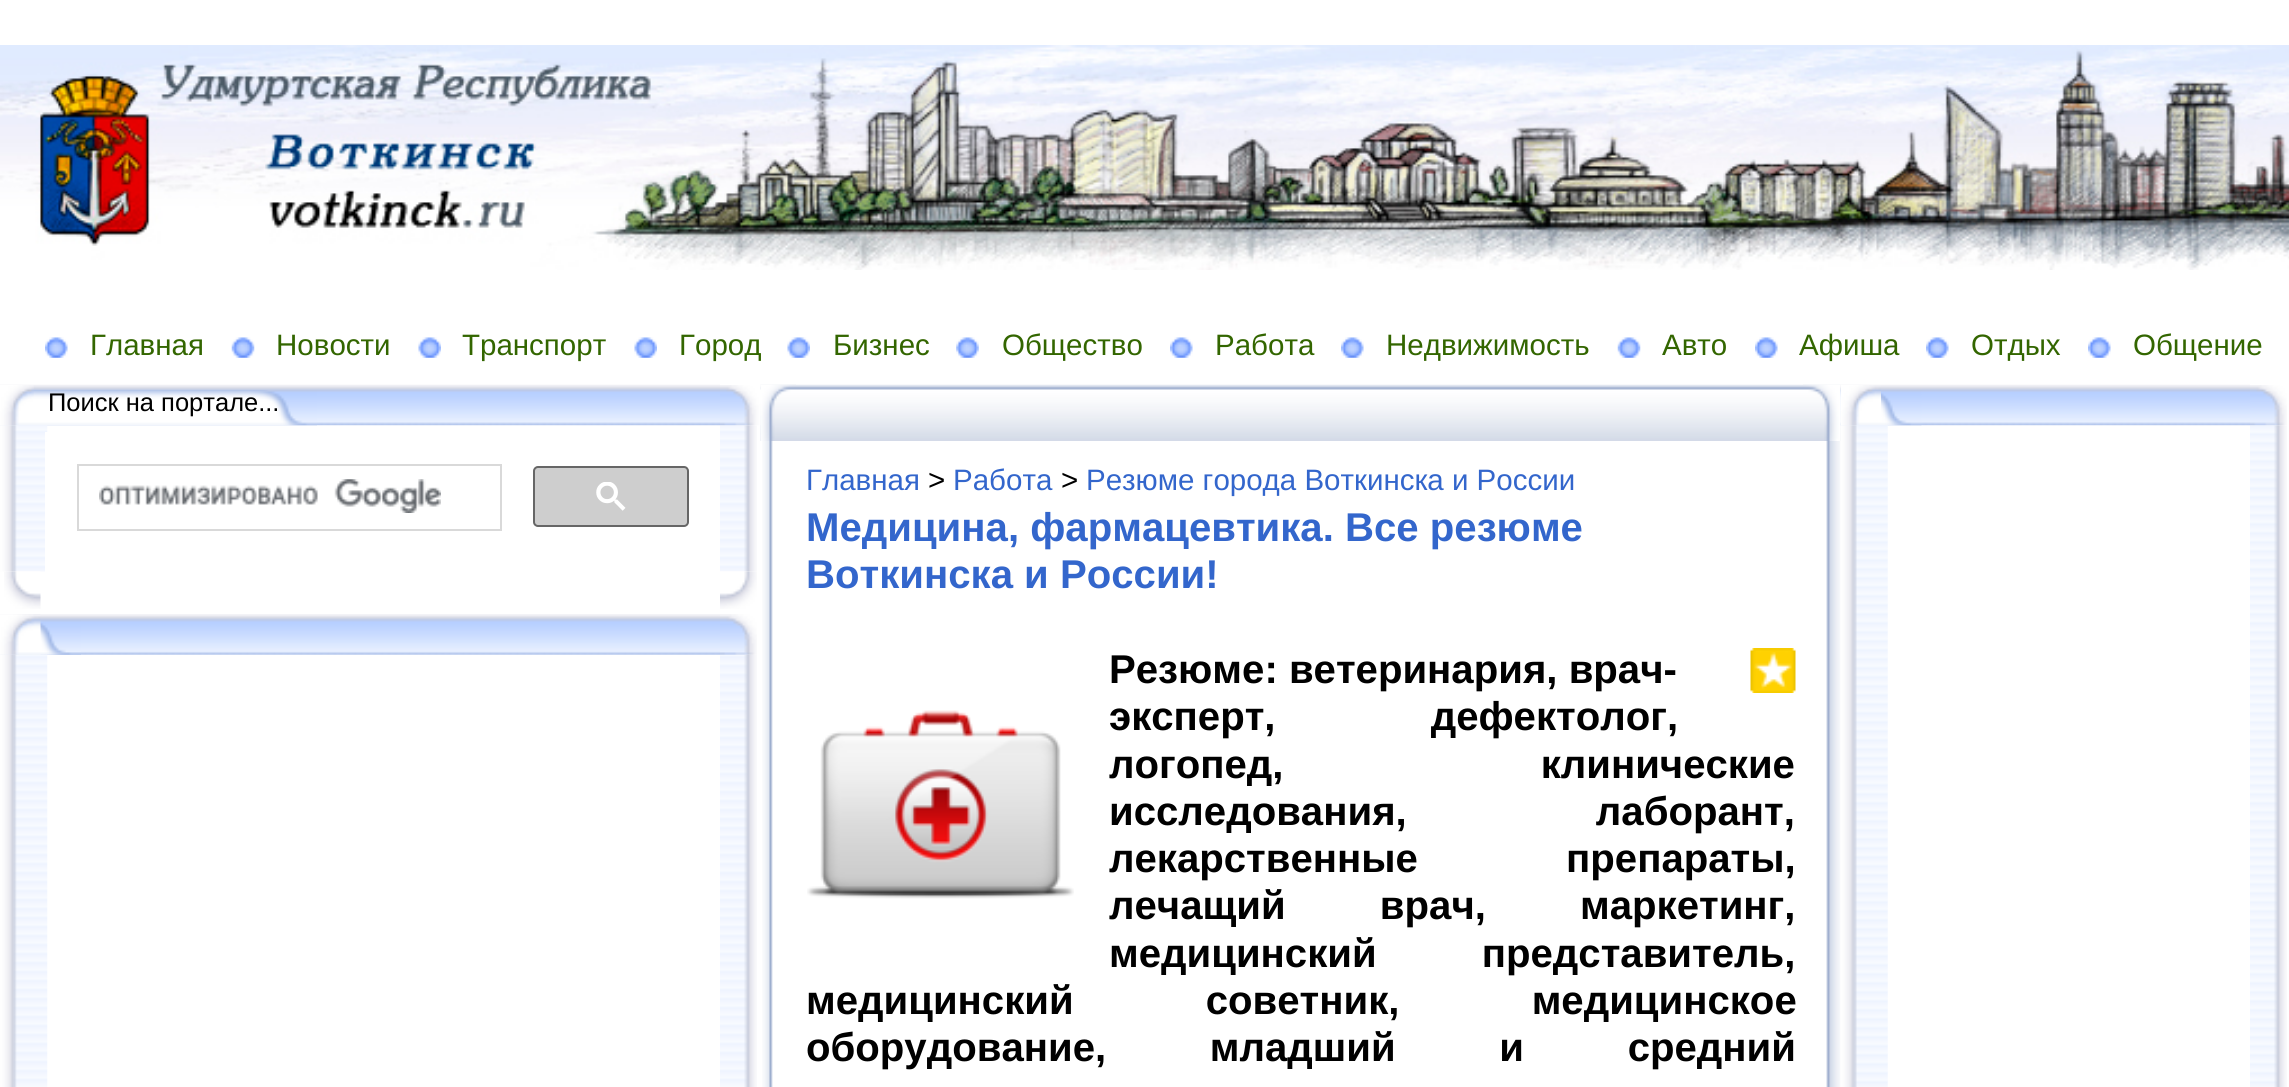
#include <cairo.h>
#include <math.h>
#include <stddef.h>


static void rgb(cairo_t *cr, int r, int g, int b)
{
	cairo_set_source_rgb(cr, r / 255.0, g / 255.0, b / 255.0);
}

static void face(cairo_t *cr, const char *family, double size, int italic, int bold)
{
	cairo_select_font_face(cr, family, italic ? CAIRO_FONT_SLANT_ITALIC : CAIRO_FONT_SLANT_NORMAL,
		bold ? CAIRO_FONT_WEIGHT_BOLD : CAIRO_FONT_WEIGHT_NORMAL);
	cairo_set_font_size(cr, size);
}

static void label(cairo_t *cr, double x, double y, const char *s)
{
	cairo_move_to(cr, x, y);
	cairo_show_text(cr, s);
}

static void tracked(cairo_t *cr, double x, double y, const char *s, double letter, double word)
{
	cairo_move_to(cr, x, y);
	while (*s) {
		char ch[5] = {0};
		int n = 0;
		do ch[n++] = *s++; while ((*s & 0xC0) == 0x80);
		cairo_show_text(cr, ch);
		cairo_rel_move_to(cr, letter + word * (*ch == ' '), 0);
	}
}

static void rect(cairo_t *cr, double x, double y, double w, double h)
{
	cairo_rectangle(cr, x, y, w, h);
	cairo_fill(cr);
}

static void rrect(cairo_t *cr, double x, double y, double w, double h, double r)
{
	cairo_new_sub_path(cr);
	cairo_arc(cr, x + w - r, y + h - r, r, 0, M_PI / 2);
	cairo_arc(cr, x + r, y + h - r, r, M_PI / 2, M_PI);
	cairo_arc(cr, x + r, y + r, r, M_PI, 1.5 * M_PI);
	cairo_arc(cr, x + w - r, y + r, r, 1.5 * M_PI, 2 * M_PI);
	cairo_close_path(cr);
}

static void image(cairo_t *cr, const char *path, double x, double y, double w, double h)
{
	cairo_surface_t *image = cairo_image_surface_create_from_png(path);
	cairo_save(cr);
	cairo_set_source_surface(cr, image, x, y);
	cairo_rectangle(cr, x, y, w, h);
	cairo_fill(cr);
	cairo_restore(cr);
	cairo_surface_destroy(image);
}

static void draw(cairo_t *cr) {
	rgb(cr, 255, 255, 255);
	cairo_paint(cr);
	image(cr, "image0.png", 0, 45, 2289, 225);
	image(cr, "image1.png", 45, 337, 23, 21);
	face(cr, "Liberation Sans", 29.5, 0, 0);
	rgb(cr, 51, 102, 0);
	label(cr, 90, 355, "Главная");
	image(cr, "image2.png", 231, 337, 24, 21);
	label(cr, 276, 355, "Новости");
	image(cr, "image3.png", 418, 337, 23, 21);
	label(cr, 462, 355, "Транспорт");
	image(cr, "image4.png", 634, 337, 23, 21);
	label(cr, 679, 355, "Город");
	image(cr, "image4.png", 787, 337, 23, 21);
	label(cr, 833, 355, "Бизнес");
	image(cr, "image5.png", 956, 337, 23, 21);
	label(cr, 1002, 355, "Общество");
	image(cr, "image6.png", 1170, 337, 23, 21);
	label(cr, 1215, 355, "Работа");
	image(cr, "image1.png", 1341, 337, 23, 21);
	label(cr, 1386, 355, "Недвижимость");
	image(cr, "image7.png", 1617, 337, 24, 21);
	label(cr, 1662, 355, "Авто");
	image(cr, "image1.png", 1755, 337, 23, 21);
	label(cr, 1799, 355, "Афиша");
	image(cr, "image6.png", 1926, 337, 23, 21);
	label(cr, 1971, 355, "Отдых");
	image(cr, "image6.png", 2088, 337, 23, 21);
	label(cr, 2133, 355, "Общение");
	image(cr, "image8.png", 0, 384, 720, 42);
	image(cr, "image9.png", 0, 390, 317, 36);
	image(cr, "image10.png", 0, 385, 34, 40);
	face(cr, "Liberation Sans", 25.5, 0, 0);
	rgb(cr, 0, 0, 0);
	label(cr, 48, 411, "Поиск на портале...");
	image(cr, "image15.png", 720, 425, 37, 147);
	image(cr, "image30.png", 760, 384, 1081, 57);
	image(cr, "image11.png", 720, 385, 41, 41);
	image(cr, "image12.png", 0, 425, 48, 147);
	rgb(cr, 255, 255, 255);
	rect(cr, 45, 432, 3, 140);
	cairo_rectangle(cr, 78, 465, 423, 65);
	rgb(cr, 217, 217, 217);
	cairo_stroke(cr);
	image(cr, "image13.png", 99, 479, 342, 34);
	rgb(cr, 206, 206, 206);
	rrect(cr, 534, 467, 154, 59, 4);
	cairo_fill_preserve(cr);
	rgb(cr, 102, 102, 102);
	cairo_stroke(cr);
	image(cr, "image14.png", 596, 482, 30, 29);
	image(cr, "image16.png", 4, 571, 37, 38);
	image(cr, "image17.png", 720, 571, 37, 38);
	image(cr, "image18.png", 0, 614, 720, 41);
	image(cr, "image19.png", 0, 619, 81, 36);
	image(cr, "image22.png", 0, 654, 48, 433);
	image(cr, "image20.png", 0, 614, 41, 41);
	image(cr, "image23.png", 720, 654, 37, 433);
	image(cr, "image21.png", 720, 614, 37, 41);
	image(cr, "image31.png", 1803, 384, 38, 57);
	image(cr, "image24.png", 1840, 384, 410, 42);
	image(cr, "image25.png", 1840, 388, 82, 38);
	image(cr, "image26.png", 1840, 385, 41, 40);
	image(cr, "image29.png", 2250, 425, 37, 662);
	image(cr, "image27.png", 2250, 385, 37, 41);
	image(cr, "image34.png", 1826, 441, 15, 646);
	image(cr, "image28.png", 1840, 425, 48, 662);
	image(cr, "image32.png", 760, 384, 36, 57);
	image(cr, "image33.png", 762, 441, 11, 646);
	face(cr, "Liberation Sans", 29.5, 0, 0);
	rgb(cr, 51, 102, 204);
	label(cr, 806, 490, "Главная");
	rgb(cr, 0, 0, 0);
	label(cr, 928, 490, ">");
	rgb(cr, 51, 102, 204);
	label(cr, 953, 490, "Работа");
	rgb(cr, 0, 0, 0);
	label(cr, 1061, 490, ">");
	rgb(cr, 51, 102, 204);
	label(cr, 1086, 490, "Резюме города Воткинска и России");
	face(cr, "Liberation Sans", 40.15, 0, 1);
	label(cr, 806, 541, "Медицина, фармацевтика. Все резюме");
	label(cr, 806, 588, "Воткинска и России!");
	image(cr, "image35.png", 1750, 648, 46, 45);
	rgb(cr, 0, 0, 0);
	label(cr, 1109, 683, "Резюме: ветеринария, врач-");
	tracked(cr, 1109, 730, "эксперт, дефектолог,", 0, 144);
	tracked(cr, 1109, 778, "логопед, клинические", 0, 246);
	tracked(cr, 1109, 825, "исследования, лаборант,", 0, 178);
	tracked(cr, 1109, 872, "лекарственные препараты,", 0, 137);
	tracked(cr, 1109, 919, "лечащий врач, маркетинг,", 0, 83);
	tracked(cr, 1109, 967, "медицинский представитель,", 0, 94);
	tracked(cr, 806, 1014, "медицинский советник, медицинское", 0, 121);
	tracked(cr, 806, 1061, "оборудование, младший и средний", 0, 92.5);
	image(cr, "image36.png", 807, 710, 267, 189);
}

int main(void) {
	cairo_surface_t *surface = cairo_image_surface_create(CAIRO_FORMAT_RGB24, 2289, 1087);
	cairo_t *cr = cairo_create(surface);
	cairo_font_options_t *options = cairo_font_options_create();
	cairo_font_options_set_hint_metrics(options, CAIRO_HINT_METRICS_OFF);
	cairo_font_options_set_hint_style(options, CAIRO_HINT_STYLE_NONE);
	cairo_set_font_options(cr, options);
	cairo_set_miter_limit(cr, 4);
	draw(cr);
	cairo_surface_write_to_png(surface, "render.png");
	cairo_font_options_destroy(options);
	cairo_destroy(cr);
	cairo_surface_destroy(surface);
	return 0;
}
